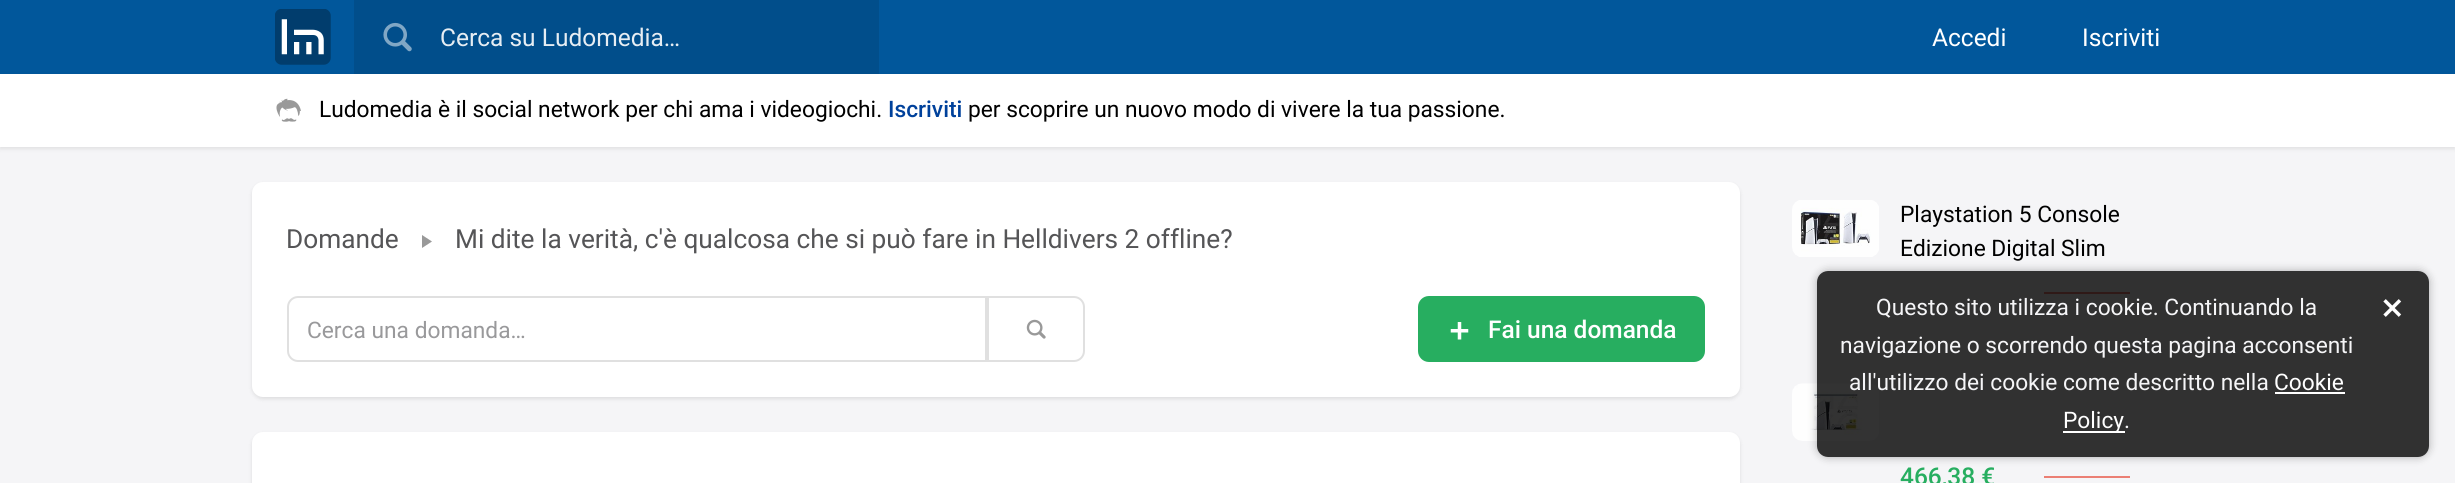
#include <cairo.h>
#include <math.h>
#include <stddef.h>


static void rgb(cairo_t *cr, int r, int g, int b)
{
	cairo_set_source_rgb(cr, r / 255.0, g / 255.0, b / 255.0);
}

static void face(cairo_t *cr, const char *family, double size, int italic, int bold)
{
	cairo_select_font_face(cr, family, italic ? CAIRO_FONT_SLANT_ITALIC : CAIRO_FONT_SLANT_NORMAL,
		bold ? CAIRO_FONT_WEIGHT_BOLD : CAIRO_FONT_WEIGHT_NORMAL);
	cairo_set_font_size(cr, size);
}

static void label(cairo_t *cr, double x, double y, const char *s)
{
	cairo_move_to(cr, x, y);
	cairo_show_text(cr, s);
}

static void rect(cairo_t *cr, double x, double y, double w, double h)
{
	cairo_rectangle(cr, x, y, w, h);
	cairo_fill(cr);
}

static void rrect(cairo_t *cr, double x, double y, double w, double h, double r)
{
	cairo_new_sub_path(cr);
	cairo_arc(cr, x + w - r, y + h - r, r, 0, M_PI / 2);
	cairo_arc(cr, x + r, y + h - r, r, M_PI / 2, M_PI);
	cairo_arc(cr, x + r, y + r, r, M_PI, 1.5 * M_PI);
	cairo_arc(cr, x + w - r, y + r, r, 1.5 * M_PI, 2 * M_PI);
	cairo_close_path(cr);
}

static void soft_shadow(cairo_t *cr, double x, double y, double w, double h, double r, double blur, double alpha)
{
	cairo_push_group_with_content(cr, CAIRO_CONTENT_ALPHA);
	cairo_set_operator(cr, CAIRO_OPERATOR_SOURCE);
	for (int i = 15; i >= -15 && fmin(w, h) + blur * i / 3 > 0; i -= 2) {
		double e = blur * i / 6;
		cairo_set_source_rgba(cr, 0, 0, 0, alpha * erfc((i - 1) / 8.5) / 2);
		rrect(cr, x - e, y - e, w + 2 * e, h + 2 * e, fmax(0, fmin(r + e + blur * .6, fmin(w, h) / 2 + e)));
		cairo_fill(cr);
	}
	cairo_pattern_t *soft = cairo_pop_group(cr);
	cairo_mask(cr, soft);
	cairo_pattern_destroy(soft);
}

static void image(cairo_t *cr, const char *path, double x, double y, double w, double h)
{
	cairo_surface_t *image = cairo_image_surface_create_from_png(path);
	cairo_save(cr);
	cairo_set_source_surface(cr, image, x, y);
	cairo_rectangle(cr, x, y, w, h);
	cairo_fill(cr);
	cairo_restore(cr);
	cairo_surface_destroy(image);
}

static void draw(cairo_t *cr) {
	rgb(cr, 245, 245, 247);
	cairo_paint(cr);
	rgb(cr, 1, 87, 155);
	rect(cr, 0, 0, 2455, 74);
	image(cr, "image0.png", 275, 9, 56, 56);
	rgb(cr, 0, 0, 0);
	soft_shadow(cr, 0, 75, 2455, 74, 0, 2, 0.09);
	rgb(cr, 1, 78, 139);
	rect(cr, 354, 0, 525, 74);
	image(cr, "image1.png", 383, 22, 29, 30);
	face(cr, "Roboto", 24.5, 0, 0);
	rgb(cr, 230, 237, 243);
	label(cr, 440, 46, "Cerca su Ludomedia…");
	rgb(cr, 255, 255, 255);
	label(cr, 1932, 46, "Accedi");
	label(cr, 2082, 46, "Iscriviti");
	rect(cr, 0, 74, 2455, 73);
	image(cr, "image2.png", 276, 98, 25, 24);
	face(cr, "Roboto", 22.75, 0, 0);
	rgb(cr, 0, 0, 0);
	label(cr, 319, 117, "Ludomedia è il social network per chi ama i videogiochi.");
	face(cr, "Roboto Medium", 22.75, 0, 0);
	rgb(cr, 0, 65, 155);
	label(cr, 888, 117, "Iscriviti");
	face(cr, "Roboto", 22.75, 0, 0);
	rgb(cr, 0, 0, 0);
	label(cr, 968, 117, "per scoprire un nuovo modo di vivere la tua passione.");
	rgb(cr, 0, 0, 0);
	soft_shadow(cr, 252, 184, 1488, 215, 11, 2, 0.1);
	rgb(cr, 255, 255, 255);
	rrect(cr, 252, 182, 1488, 215, 11);
	cairo_fill(cr);
	face(cr, "Roboto", 26.25, 0, 0);
	rgb(cr, 85, 85, 87);
	label(cr, 286, 248, "Domande");
	rgb(cr, 153, 153, 153);
	cairo_new_path(cr);
	cairo_move_to(cr, 422, 248);
	cairo_line_to(cr, 422, 235);
	cairo_line_to(cr, 432, 241.5);
	cairo_close_path(cr);
	cairo_fill(cr);
	rgb(cr, 85, 85, 87);
	label(cr, 455, 248, "Mi dite la verità, c'è qualcosa che si può fare in Helldivers 2 offline?");
	cairo_new_path(cr);
	cairo_move_to(cr, 298, 297);
	cairo_line_to(cr, 986, 297);
	cairo_line_to(cr, 986, 361);
	cairo_line_to(cr, 298, 361);
	cairo_curve_to(cr, 292.5, 361, 288, 356.5, 288, 351);
	cairo_line_to(cr, 288, 307);
	cairo_curve_to(cr, 288, 301.5, 292.5, 297, 298, 297);
	cairo_close_path(cr);
	rgb(cr, 224, 224, 224);
	cairo_stroke(cr);
	face(cr, "Roboto", 22.75, 0, 0);
	rgb(cr, 153, 153, 155);
	label(cr, 307, 338, "Cerca una domanda…");
	cairo_new_path(cr);
	cairo_move_to(cr, 988, 297);
	cairo_line_to(cr, 1074, 297);
	cairo_curve_to(cr, 1079.5, 297, 1084, 301.5, 1084, 307);
	cairo_line_to(cr, 1084, 351);
	cairo_curve_to(cr, 1084, 356.5, 1079.5, 361, 1074, 361);
	cairo_line_to(cr, 988, 361);
	cairo_close_path(cr);
	rgb(cr, 224, 224, 224);
	cairo_stroke(cr);
	image(cr, "image3.png", 1026, 319, 20, 20);
	rgb(cr, 39, 174, 96);
	rrect(cr, 1419, 297, 285, 64, 10);
	cairo_fill_preserve(cr);
	cairo_stroke(cr);
	image(cr, "image4.png", 1450, 322, 19, 18);
	face(cr, "Roboto Medium", 24.5, 0, 0);
	rgb(cr, 255, 255, 255);
	label(cr, 1488, 338, "Fai una domanda");
	rgb(cr, 0, 0, 0);
	soft_shadow(cr, 252, 434, 1488, 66, 11, 2, 0.1);
	rgb(cr, 255, 255, 255);
	rrect(cr, 252, 432, 1488, 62, 11);
	cairo_fill(cr);
	image(cr, "image5.png", 1792, 200, 87, 57);
	face(cr, "Roboto", 22.75, 0, 0);
	rgb(cr, 0, 0, 0);
	label(cr, 1900, 222, "Playstation 5 Console");
	label(cr, 1900, 256, "Edizione Digital Slim");
	rgb(cr, 235, 127, 116);
	rect(cr, 2044, 292, 86, 2);
	image(cr, "image6.png", 1792, 383, 87, 58);
	face(cr, "Roboto Medium", 24.5, 0, 0);
	rgb(cr, 39, 174, 96);
	label(cr, 1900, 485, "466,38 €");
	rgb(cr, 235, 127, 116);
	rect(cr, 2044, 476, 86, 2);
	cairo_save(cr);
	cairo_set_fill_rule(cr, CAIRO_FILL_RULE_EVEN_ODD);
	cairo_new_path(cr);
	cairo_move_to(cr, 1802, 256);
	cairo_line_to(cr, 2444, 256);
	cairo_line_to(cr, 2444, 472);
	cairo_line_to(cr, 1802, 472);
	cairo_close_path(cr);
	cairo_move_to(cr, 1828, 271);
	cairo_line_to(cr, 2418, 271);
	cairo_curve_to(cr, 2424, 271, 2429, 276, 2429, 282);
	cairo_line_to(cr, 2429, 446);
	cairo_curve_to(cr, 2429, 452, 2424, 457, 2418, 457);
	cairo_line_to(cr, 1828, 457);
	cairo_curve_to(cr, 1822, 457, 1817, 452, 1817, 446);
	cairo_line_to(cr, 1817, 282);
	cairo_curve_to(cr, 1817, 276, 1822, 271, 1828, 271);
	cairo_close_path(cr);
	cairo_clip(cr);
	rgb(cr, 0, 0, 0);
	soft_shadow(cr, 1817, 271, 612, 186, 11, 4.5, 0.3);
	cairo_restore(cr);
	cairo_set_source_rgba(cr, 0, 0, 0, 0.8);
	rrect(cr, 1817, 271, 612, 186, 11);
	cairo_fill(cr);
	face(cr, "Roboto", 22.75, 0, 0);
	rgb(cr, 245, 245, 247);
	label(cr, 1876, 315, "Questo sito utilizza i cookie. Continuando la");
	label(cr, 1840, 353, "navigazione o scorrendo questa pagina acconsenti");
	label(cr, 1849, 390, "all'utilizzo dei cookie come descritto nella");
	rgb(cr, 255, 255, 255);
	label(cr, 2274, 390, "Cookie");
	rect(cr, 2275, 392, 70, 2);
	rect(cr, 2063, 431, 62, 2);
	label(cr, 2063, 428, "Policy");
	rgb(cr, 245, 245, 247);
	label(cr, 2124, 428, ".");
	image(cr, "image7.png", 2383, 299, 19, 18);
}

int main(void) {
	cairo_surface_t *surface = cairo_image_surface_create(CAIRO_FORMAT_RGB24, 2455, 483);
	cairo_t *cr = cairo_create(surface);
	cairo_font_options_t *options = cairo_font_options_create();
	cairo_font_options_set_hint_metrics(options, CAIRO_HINT_METRICS_OFF);
	cairo_font_options_set_hint_style(options, CAIRO_HINT_STYLE_NONE);
	cairo_set_font_options(cr, options);
	cairo_set_miter_limit(cr, 4);
	draw(cr);
	cairo_surface_write_to_png(surface, "render.png");
	cairo_font_options_destroy(options);
	cairo_destroy(cr);
	cairo_surface_destroy(surface);
	return 0;
}
